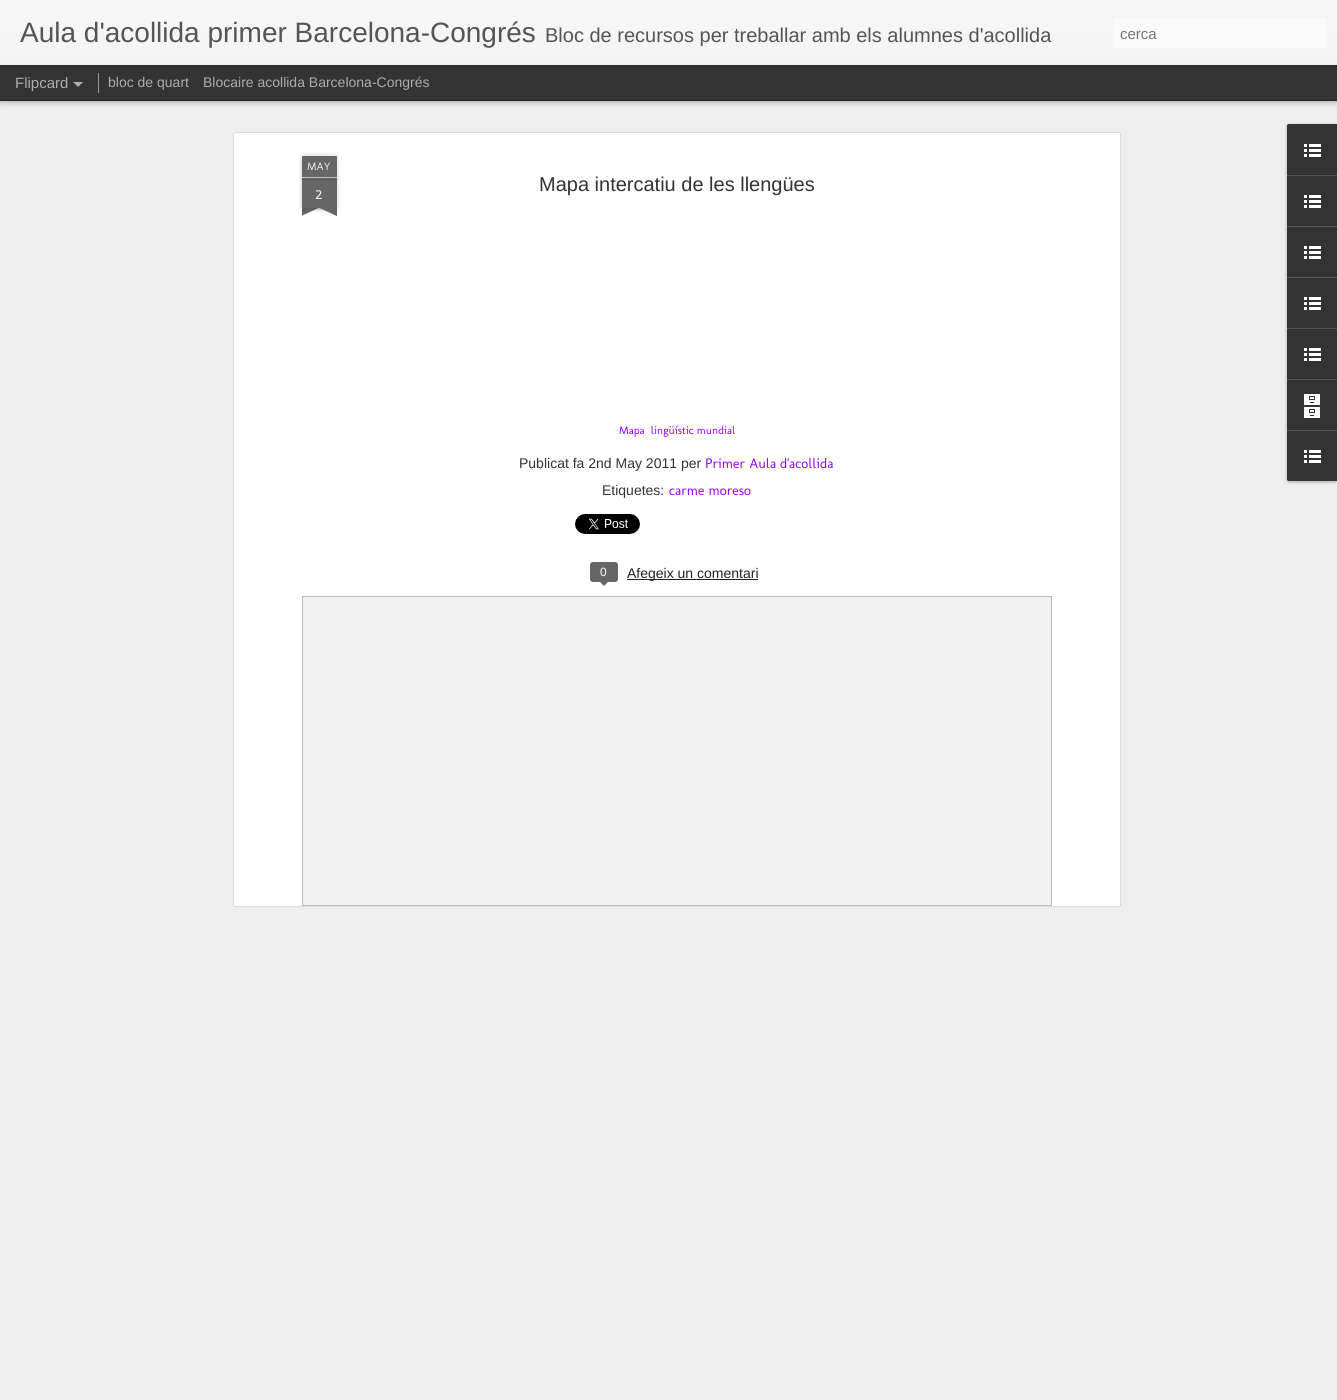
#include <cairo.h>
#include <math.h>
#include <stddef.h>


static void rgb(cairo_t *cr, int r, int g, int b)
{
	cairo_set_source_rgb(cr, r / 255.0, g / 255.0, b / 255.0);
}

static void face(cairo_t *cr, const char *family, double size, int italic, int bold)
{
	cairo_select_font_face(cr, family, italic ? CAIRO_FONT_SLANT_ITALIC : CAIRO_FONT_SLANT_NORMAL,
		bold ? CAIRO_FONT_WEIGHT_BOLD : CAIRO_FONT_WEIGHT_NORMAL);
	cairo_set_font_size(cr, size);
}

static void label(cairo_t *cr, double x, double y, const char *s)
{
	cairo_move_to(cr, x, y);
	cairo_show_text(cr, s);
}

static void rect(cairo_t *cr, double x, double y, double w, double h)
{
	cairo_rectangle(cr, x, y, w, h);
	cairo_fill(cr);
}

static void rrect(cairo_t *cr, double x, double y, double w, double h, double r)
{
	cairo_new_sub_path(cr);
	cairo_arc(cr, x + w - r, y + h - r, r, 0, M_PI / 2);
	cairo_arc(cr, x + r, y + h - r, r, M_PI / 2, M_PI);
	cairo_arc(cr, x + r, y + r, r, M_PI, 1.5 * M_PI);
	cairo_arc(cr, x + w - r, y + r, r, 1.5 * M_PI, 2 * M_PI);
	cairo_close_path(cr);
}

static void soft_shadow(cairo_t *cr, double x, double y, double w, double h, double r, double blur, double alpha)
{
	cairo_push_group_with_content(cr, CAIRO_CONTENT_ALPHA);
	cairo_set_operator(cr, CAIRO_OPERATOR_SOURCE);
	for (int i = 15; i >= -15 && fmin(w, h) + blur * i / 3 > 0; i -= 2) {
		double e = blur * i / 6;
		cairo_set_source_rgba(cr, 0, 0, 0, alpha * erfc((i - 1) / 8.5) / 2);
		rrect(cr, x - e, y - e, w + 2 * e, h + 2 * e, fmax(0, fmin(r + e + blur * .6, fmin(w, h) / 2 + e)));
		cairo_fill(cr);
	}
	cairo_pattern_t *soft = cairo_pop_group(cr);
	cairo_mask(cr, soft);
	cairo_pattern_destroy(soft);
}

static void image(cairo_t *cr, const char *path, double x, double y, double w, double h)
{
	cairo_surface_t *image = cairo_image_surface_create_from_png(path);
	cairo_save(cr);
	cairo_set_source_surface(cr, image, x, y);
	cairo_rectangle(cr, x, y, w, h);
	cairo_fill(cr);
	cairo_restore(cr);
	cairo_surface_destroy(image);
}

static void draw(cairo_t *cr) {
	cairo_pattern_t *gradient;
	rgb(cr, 51, 51, 51);
	cairo_paint(cr);
	rgb(cr, 238, 238, 238);
	rect(cr, 0, 101, 1337, 1299);
	rgb(cr, 0, 0, 0);
	soft_shadow(cr, 0, 65, 1337, 35, 0, 4, 0.5);
	rgb(cr, 51, 51, 51);
	rect(cr, 0, 65, 1337, 35);
	rgb(cr, 153, 153, 153);
	rect(cr, 98, 73, 1, 20);
	rgb(cr, 0, 0, 0);
	soft_shadow(cr, 0, 0, 1337, 65, 0, 2.5, 0.3);
	gradient = cairo_pattern_create_linear(0, 0, 0, 65);
	cairo_pattern_add_color_stop_rgba(gradient, 0, 0.969, 0.969, 0.969, 1);
	cairo_pattern_add_color_stop_rgba(gradient, 1, 0.957, 0.957, 0.957, 1);
	cairo_set_source(cr, gradient);
	cairo_pattern_destroy(gradient);
	rect(cr, 0, 0, 1337, 65);
	face(cr, "Liberation Sans", 28, 0, 0);
	rgb(cr, 85, 85, 85);
	label(cr, 20, 42, "Aula d'acollida primer Barcelona-Congrés");
	face(cr, "Liberation Sans", 20, 0, 0);
	label(cr, 545, 42, "Bloc de recursos per treballar amb els alumnes d'acollida");
	rgb(cr, 250, 250, 250);
	rrect(cr, 1113, 18, 214, 30, 3);
	cairo_fill(cr);
	face(cr, "Liberation Sans", 15, 0, 0);
	rgb(cr, 117, 117, 117);
	label(cr, 1120, 39, "cerca");
	rgb(cr, 173, 173, 173);
	label(cr, 15, 88, "Flipcard");
	cairo_new_path(cr);
	cairo_move_to(cr, 73, 82);
	cairo_line_to(cr, 83, 82);
	cairo_line_to(cr, 78, 87);
	cairo_close_path(cr);
	cairo_fill(cr);
	face(cr, "Liberation Sans", 14, 0, 0);
	label(cr, 108, 87, "bloc de quart");
	label(cr, 203, 87, "Blocaire acollida Barcelona-Congrés");
	rgb(cr, 255, 255, 255);
	rect(cr, 232, 131, 890, 777);
	image(cr, "image0.png", 232, 131, 890, 777);
	rgb(cr, 0, 0, 0);
	soft_shadow(cr, 302, 178, 35, 30, 0, 2.5, 0.2);
	rgb(cr, 102, 102, 102);
	rect(cr, 302, 178, 35, 30);
	rgb(cr, 0, 0, 0);
	soft_shadow(cr, 302, 156, 35, 22, 1, 2.5, 0.2);
	rgb(cr, 102, 102, 102);
	cairo_new_path(cr);
	cairo_move_to(cr, 303, 156);
	cairo_line_to(cr, 336, 156);
	cairo_curve_to(cr, 336.5, 156, 337, 156.5, 337, 157);
	cairo_line_to(cr, 337, 178);
	cairo_line_to(cr, 302, 178);
	cairo_line_to(cr, 302, 157);
	cairo_curve_to(cr, 302, 156.5, 302.5, 156, 303, 156);
	cairo_close_path(cr);
	cairo_fill(cr);
	rgb(cr, 194, 194, 194);
	rect(cr, 302, 177, 35, 1);
	face(cr, "Molengo", 11, 0, 0);
	rgb(cr, 238, 238, 238);
	label(cr, 307, 170, "MAY");
	cairo_save(cr);
	cairo_rectangle(cr, 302, 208, 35, 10);
	cairo_clip(cr);
	rgb(cr, 0, 0, 0);
	soft_shadow(cr, 293, 198, 50, 10, 0, 2.5, 0.2);
	cairo_restore(cr);
	cairo_save(cr);
	cairo_rectangle(cr, 302, 208, 35, 10);
	cairo_clip(cr);
	rgb(cr, 102, 102, 102);
	cairo_new_path(cr);
	cairo_move_to(cr, 293, 209);
	cairo_line_to(cr, 338, 188);
	cairo_line_to(cr, 342, 197);
	cairo_line_to(cr, 297, 218);
	cairo_close_path(cr);
	cairo_fill(cr);
	cairo_restore(cr);
	cairo_save(cr);
	cairo_rectangle(cr, 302, 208, 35, 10);
	cairo_clip(cr);
	rgb(cr, 0, 0, 0);
	soft_shadow(cr, 296, 198, 50, 10, 0, 2.5, 0.2);
	cairo_restore(cr);
	cairo_save(cr);
	cairo_rectangle(cr, 302, 208, 35, 10);
	cairo_clip(cr);
	rgb(cr, 102, 102, 102);
	cairo_new_path(cr);
	cairo_move_to(cr, 300, 188);
	cairo_line_to(cr, 345, 209);
	cairo_line_to(cr, 341, 218);
	cairo_line_to(cr, 296, 197);
	cairo_close_path(cr);
	cairo_fill(cr);
	cairo_restore(cr);
	face(cr, "Molengo", 17, 0, 0);
	label(cr, 315, 199, "2");
	face(cr, "Liberation Sans", 20, 0, 0);
	rgb(cr, 51, 51, 51);
	label(cr, 539, 191, "Mapa intercatiu de les llengües");
	face(cr, "Molengo", 11.25, 0, 0);
	rgb(cr, 153, 0, 255);
	label(cr, 619, 434, "Mapa  lingüístic mundial");
	face(cr, "Liberation Sans", 14, 0, 0);
	rgb(cr, 51, 51, 51);
	label(cr, 519, 468, "Publicat fa 2nd May 2011 per");
	face(cr, "Molengo", 14, 0, 0);
	rgb(cr, 153, 0, 255);
	label(cr, 705, 468, "Primer Aula d'acollida");
	face(cr, "Liberation Sans", 14, 0, 0);
	rgb(cr, 51, 51, 51);
	label(cr, 602, 495, "Etiquetes:");
	face(cr, "Molengo", 14, 0, 0);
	rgb(cr, 153, 0, 255);
	label(cr, 669, 495, "carme moreso");
	image(cr, "image1.png", 575, 514, 65, 20);
	rgb(cr, 102, 102, 102);
	rrect(cr, 590.5, 562.5, 27, 19, 2.5);
	cairo_fill_preserve(cr);
	cairo_set_line_width(cr, 1);
	cairo_stroke(cr);
	face(cr, "Liberation Sans", 12, 0, 0);
	rgb(cr, 255, 255, 255);
	label(cr, 600, 576, "0");
	rgb(cr, 102, 102, 102);
	cairo_new_path(cr);
	cairo_move_to(cr, 599, 581);
	cairo_line_to(cr, 609, 581);
	cairo_line_to(cr, 604, 586);
	cairo_close_path(cr);
	cairo_fill(cr);
	rgb(cr, 34, 34, 34);
	rect(cr, 627, 579, 131, 1);
	face(cr, "Liberation Sans", 14, 0, 0);
	label(cr, 627, 578, "Afegeix un comentari");
	rgb(cr, 241, 241, 241);
	cairo_rectangle(cr, 302.5, 596.5, 749, 309);
	cairo_fill_preserve(cr);
	rgb(cr, 187, 187, 187);
	cairo_stroke(cr);
	rgb(cr, 0, 0, 0);
	soft_shadow(cr, 1287, 125, 50, 357, 2, 1.5, 0.3);
	rgb(cr, 51, 51, 51);
	cairo_new_path(cr);
	cairo_move_to(cr, 1289, 124);
	cairo_line_to(cr, 1337, 124);
	cairo_line_to(cr, 1337, 481);
	cairo_line_to(cr, 1289, 481);
	cairo_curve_to(cr, 1288, 481, 1287, 480, 1287, 479);
	cairo_line_to(cr, 1287, 126);
	cairo_curve_to(cr, 1287, 125, 1288, 124, 1289, 124);
	cairo_close_path(cr);
	cairo_fill(cr);
	cairo_new_path(cr);
	cairo_move_to(cr, 1289, 124);
	cairo_line_to(cr, 1337, 124);
	cairo_line_to(cr, 1337, 175);
	cairo_line_to(cr, 1287, 175);
	cairo_line_to(cr, 1287, 126);
	cairo_curve_to(cr, 1287, 125, 1288, 124, 1289, 124);
	cairo_close_path(cr);
	cairo_fill(cr);
	image(cr, "image2.png", 1304, 144, 17, 13);
	rgb(cr, 88, 88, 88);
	rect(cr, 1287, 175, 50, 1);
	image(cr, "image2.png", 1304, 195, 17, 13);
	rect(cr, 1287, 226, 50, 1);
	image(cr, "image2.png", 1304, 246, 17, 13);
	rect(cr, 1287, 277, 50, 1);
	image(cr, "image2.png", 1304, 297, 17, 13);
	rect(cr, 1287, 328, 50, 1);
	image(cr, "image2.png", 1304, 348, 17, 13);
	rect(cr, 1287, 379, 50, 1);
	image(cr, "image3.png", 1304, 394, 16, 24);
	rgb(cr, 51, 51, 51);
	cairo_new_path(cr);
	cairo_move_to(cr, 1287, 430);
	cairo_line_to(cr, 1337, 430);
	cairo_line_to(cr, 1337, 481);
	cairo_line_to(cr, 1289, 481);
	cairo_curve_to(cr, 1288, 481, 1287, 480, 1287, 479);
	cairo_close_path(cr);
	cairo_fill(cr);
	rgb(cr, 88, 88, 88);
	rect(cr, 1287, 430, 50, 1);
	image(cr, "image2.png", 1304, 450, 17, 13);
}

int main(void) {
	cairo_surface_t *surface = cairo_image_surface_create(CAIRO_FORMAT_RGB24, 1337, 1400);
	cairo_t *cr = cairo_create(surface);
	cairo_font_options_t *options = cairo_font_options_create();
	cairo_font_options_set_hint_metrics(options, CAIRO_HINT_METRICS_OFF);
	cairo_font_options_set_hint_style(options, CAIRO_HINT_STYLE_NONE);
	cairo_set_font_options(cr, options);
	cairo_set_miter_limit(cr, 4);
	draw(cr);
	cairo_surface_write_to_png(surface, "render.png");
	cairo_font_options_destroy(options);
	cairo_destroy(cr);
	cairo_surface_destroy(surface);
	return 0;
}
